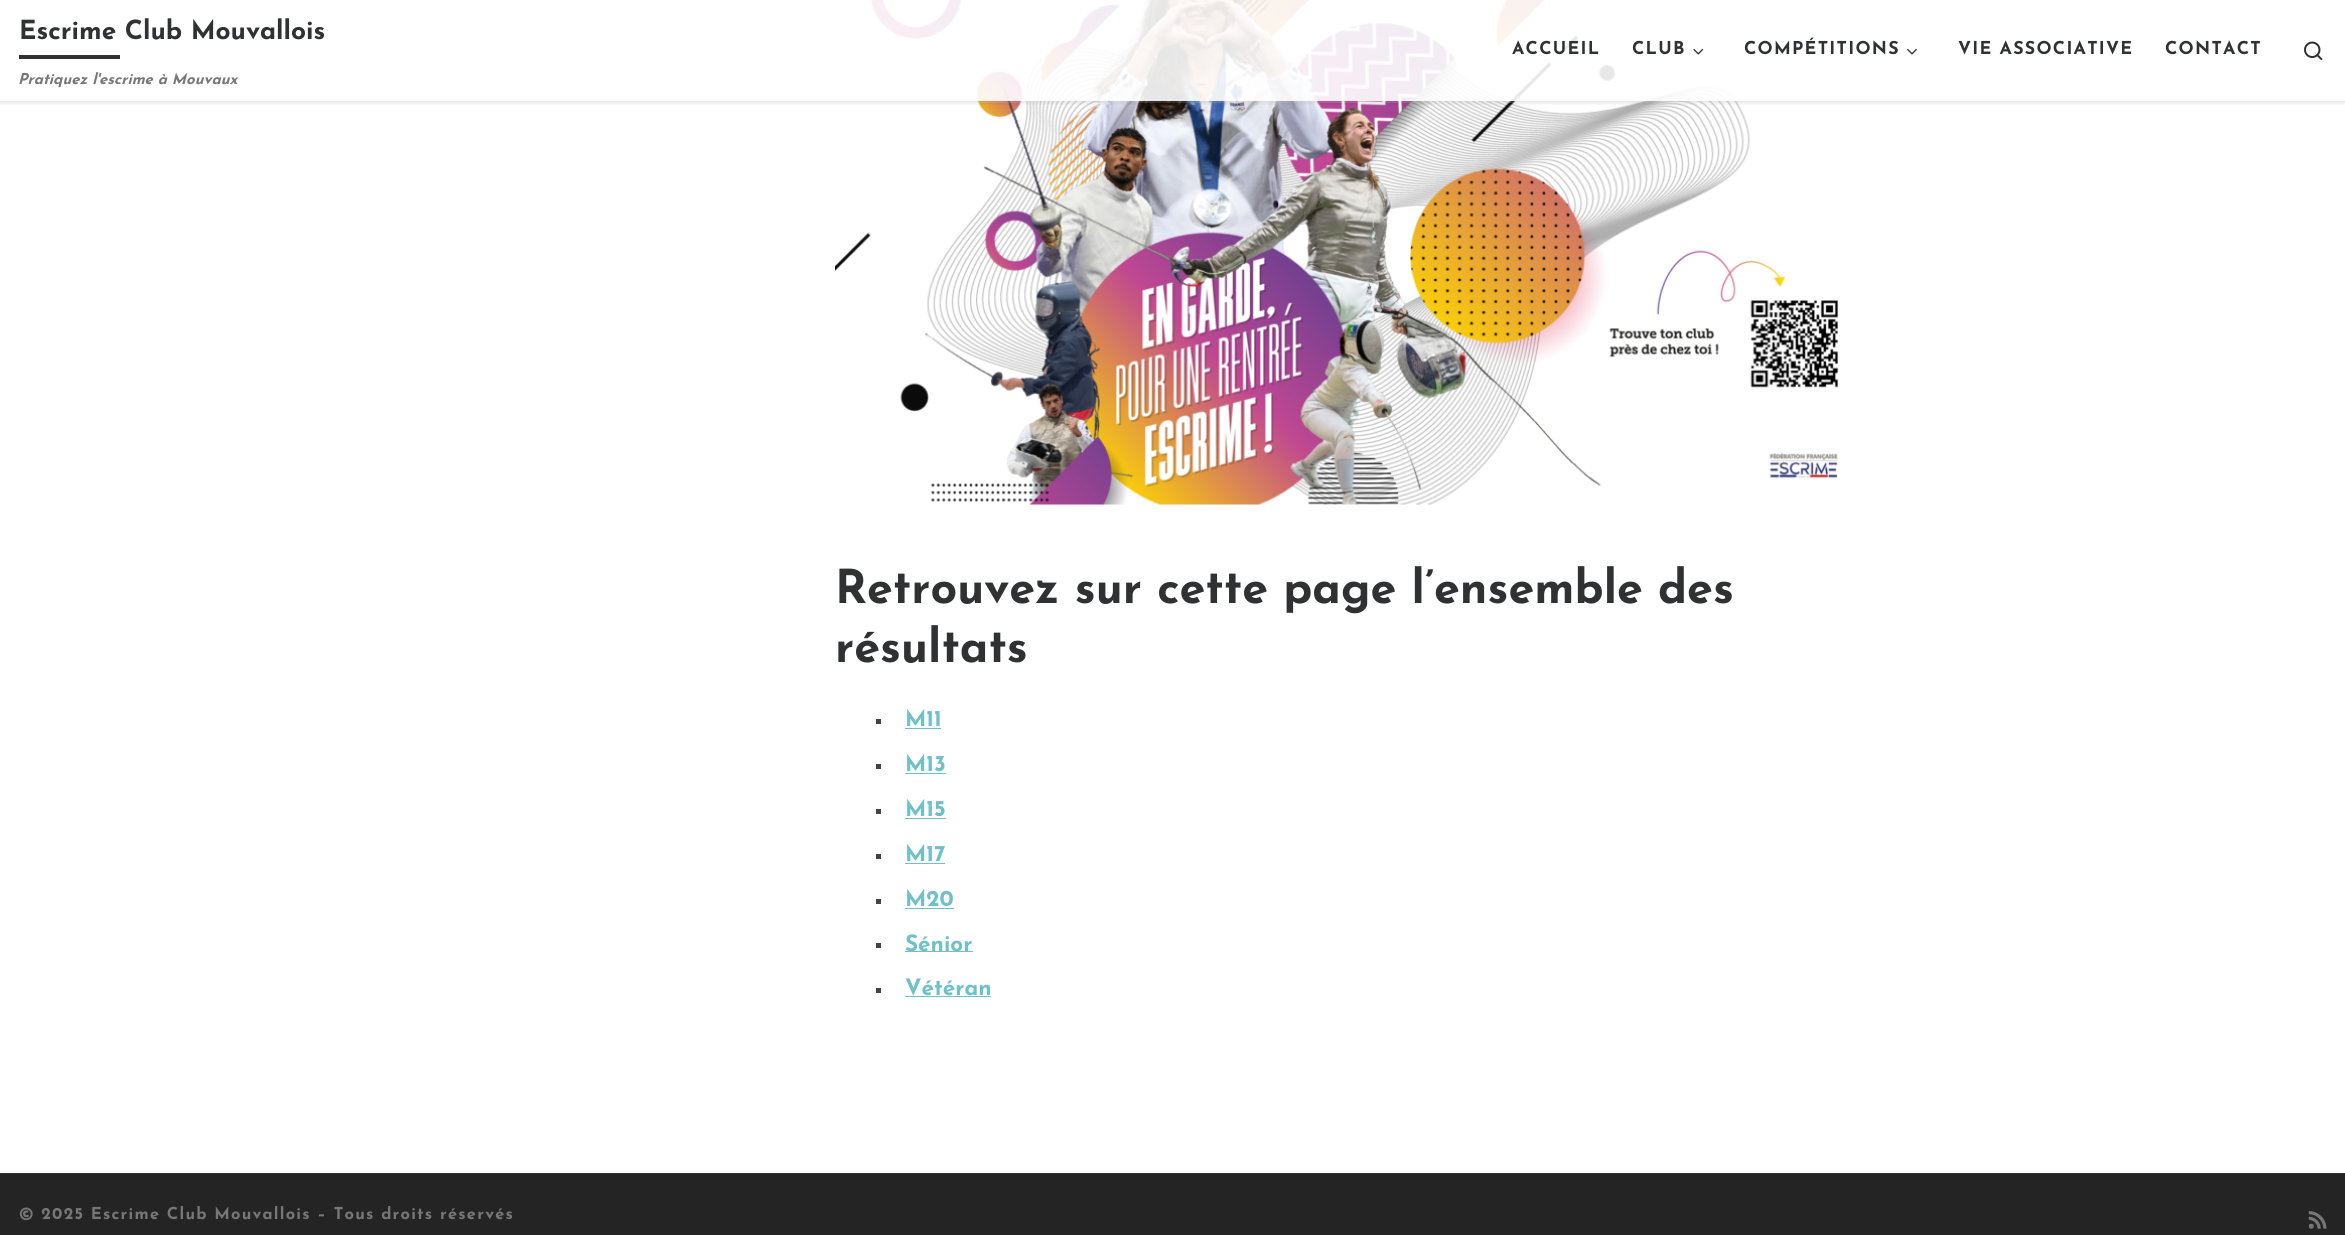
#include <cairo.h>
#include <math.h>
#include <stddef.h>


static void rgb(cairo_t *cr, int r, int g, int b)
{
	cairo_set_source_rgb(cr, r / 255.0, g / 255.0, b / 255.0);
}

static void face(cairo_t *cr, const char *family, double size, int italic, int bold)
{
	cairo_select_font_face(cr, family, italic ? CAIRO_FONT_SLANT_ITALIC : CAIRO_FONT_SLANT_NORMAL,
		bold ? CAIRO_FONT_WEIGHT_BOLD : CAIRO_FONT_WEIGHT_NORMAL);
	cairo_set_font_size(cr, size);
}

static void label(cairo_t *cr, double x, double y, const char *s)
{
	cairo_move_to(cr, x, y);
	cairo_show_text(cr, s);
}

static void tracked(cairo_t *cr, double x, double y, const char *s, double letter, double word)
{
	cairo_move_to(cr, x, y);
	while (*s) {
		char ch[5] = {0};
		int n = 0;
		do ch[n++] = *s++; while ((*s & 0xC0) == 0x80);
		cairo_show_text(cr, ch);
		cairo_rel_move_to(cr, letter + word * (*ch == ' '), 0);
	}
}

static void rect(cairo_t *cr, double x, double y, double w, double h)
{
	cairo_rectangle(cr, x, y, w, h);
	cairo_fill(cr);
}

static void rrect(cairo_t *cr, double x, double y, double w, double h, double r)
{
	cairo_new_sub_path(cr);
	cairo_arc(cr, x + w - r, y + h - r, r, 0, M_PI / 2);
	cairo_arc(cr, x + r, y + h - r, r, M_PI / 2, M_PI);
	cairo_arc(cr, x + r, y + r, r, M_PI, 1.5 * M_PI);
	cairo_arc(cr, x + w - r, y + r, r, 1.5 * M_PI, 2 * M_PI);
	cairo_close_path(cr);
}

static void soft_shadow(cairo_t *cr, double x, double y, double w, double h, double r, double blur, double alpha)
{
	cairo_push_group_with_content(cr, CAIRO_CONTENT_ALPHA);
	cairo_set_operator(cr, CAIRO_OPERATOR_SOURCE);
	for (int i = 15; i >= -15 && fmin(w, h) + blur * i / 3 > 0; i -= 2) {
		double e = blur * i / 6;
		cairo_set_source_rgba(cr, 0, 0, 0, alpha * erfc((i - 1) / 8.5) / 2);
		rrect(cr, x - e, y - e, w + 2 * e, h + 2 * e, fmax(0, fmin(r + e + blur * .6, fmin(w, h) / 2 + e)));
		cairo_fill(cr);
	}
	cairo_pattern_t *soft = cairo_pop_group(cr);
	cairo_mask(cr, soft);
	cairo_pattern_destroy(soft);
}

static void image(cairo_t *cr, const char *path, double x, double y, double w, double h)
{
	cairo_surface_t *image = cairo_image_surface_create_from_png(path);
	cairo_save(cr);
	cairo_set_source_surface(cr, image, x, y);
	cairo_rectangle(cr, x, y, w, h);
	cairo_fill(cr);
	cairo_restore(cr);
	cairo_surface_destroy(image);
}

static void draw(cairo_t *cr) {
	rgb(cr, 255, 255, 255);
	cairo_paint(cr);
	image(cr, "image3.png", 835, 0, 1004, 505);
	cairo_set_source_rgba(cr, 1, 1, 1, 0.15);
	rect(cr, 978, 101, 759, 2);
	cairo_save(cr);
	cairo_rectangle(cr, 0, 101, 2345, 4);
	cairo_clip(cr);
	rgb(cr, 0, 0, 0);
	soft_shadow(cr, 0, 0, 2345, 101, 0, 3, 0.2);
	cairo_restore(cr);
	cairo_set_source_rgba(cr, 1, 1, 1, 0.9);
	rect(cr, 870, 0, 867, 101);
	face(cr, "Josefin Sans Thin", 26.25, 0, 0);
	rgb(cr, 48, 49, 51);
	label(cr, 19, 39, "Escrime Club Mouvallois");
	rgb(cr, 49, 49, 49);
	rect(cr, 19, 55, 101, 4);
	face(cr, "Josefin Sans Thin", 15, 1, 0);
	rgb(cr, 119, 119, 119);
	label(cr, 18, 84, "Pratiquez l'escrime à Mouvaux");
	face(cr, "Josefin Sans Thin", 17.75, 0, 0);
	rgb(cr, 48, 49, 51);
	tracked(cr, 1512, 54, "ACCUEIL", 1.25, 0);
	tracked(cr, 1632, 54, "CLUB", 1.25, 0);
	image(cr, "image0.png", 1693, 48, 11, 7);
	tracked(cr, 1744, 54, "COMPÉTITIONS", 1.25, 0);
	image(cr, "image1.png", 1907, 48, 10, 7);
	tracked(cr, 1958, 54, "VIE ASSOCIATIVE", 1.25, 0);
	tracked(cr, 2165, 54, "CONTACT", 1.25, 0);
	image(cr, "image2.png", 2304, 41, 19, 20);
	face(cr, "Josefin Sans Thin", 46.7, 0, 0);
	label(cr, 835, 603, "Retrouvez sur cette page l’ensemble des");
	label(cr, 835, 662, "résultats");
	rgb(cr, 68, 68, 68);
	rect(cr, 876, 719, 5, 5);
	face(cr, "Josefin Sans Thin", 22.5, 0, 0);
	rgb(cr, 110, 192, 201);
	label(cr, 905, 726, "M11");
	rect(cr, 905, 728, 36, 1);
	rgb(cr, 68, 68, 68);
	rect(cr, 876, 764, 5, 5);
	rgb(cr, 110, 192, 201);
	label(cr, 905, 771, "M13");
	rect(cr, 905, 773, 41, 1);
	rgb(cr, 68, 68, 68);
	rect(cr, 876, 809, 5, 5);
	rgb(cr, 110, 192, 201);
	label(cr, 905, 816, "M15");
	rect(cr, 905, 818, 41, 1);
	rgb(cr, 68, 68, 68);
	rect(cr, 876, 854, 5, 5);
	rgb(cr, 110, 192, 201);
	label(cr, 905, 861, "M17");
	rect(cr, 905, 863, 40, 1);
	rgb(cr, 68, 68, 68);
	rect(cr, 876, 899, 5, 5);
	rgb(cr, 110, 192, 201);
	label(cr, 905, 906, "M20");
	rect(cr, 905, 908, 49, 1);
	rgb(cr, 68, 68, 68);
	rect(cr, 876, 943, 5, 5);
	rgb(cr, 110, 192, 201);
	rect(cr, 905, 951, 68, 1);
	label(cr, 905, 951, "Sénior");
	rgb(cr, 68, 68, 68);
	rect(cr, 876, 988, 5, 5);
	rgb(cr, 110, 192, 201);
	label(cr, 905, 995, "Vétéran");
	rect(cr, 905, 996, 86, 1);
	rgb(cr, 49, 49, 49);
	rect(cr, 0, 1173, 2345, 1);
	rgb(cr, 36, 36, 36);
	rect(cr, 0, 1174, 2345, 61);
	face(cr, "Josefin Sans Thin", 16.4, 0, 0);
	rgb(cr, 119, 119, 119);
	tracked(cr, 19, 1219, "© 2025 Escrime Club Mouvallois – Tous droits réservés", 1.25, 0);
	image(cr, "image4.png", 2308, 1211, 19, 18);
}

int main(void) {
	cairo_surface_t *surface = cairo_image_surface_create(CAIRO_FORMAT_RGB24, 2345, 1235);
	cairo_t *cr = cairo_create(surface);
	cairo_font_options_t *options = cairo_font_options_create();
	cairo_font_options_set_hint_metrics(options, CAIRO_HINT_METRICS_OFF);
	cairo_font_options_set_hint_style(options, CAIRO_HINT_STYLE_NONE);
	cairo_set_font_options(cr, options);
	cairo_set_miter_limit(cr, 4);
	draw(cr);
	cairo_surface_write_to_png(surface, "render.png");
	cairo_font_options_destroy(options);
	cairo_destroy(cr);
	cairo_surface_destroy(surface);
	return 0;
}
